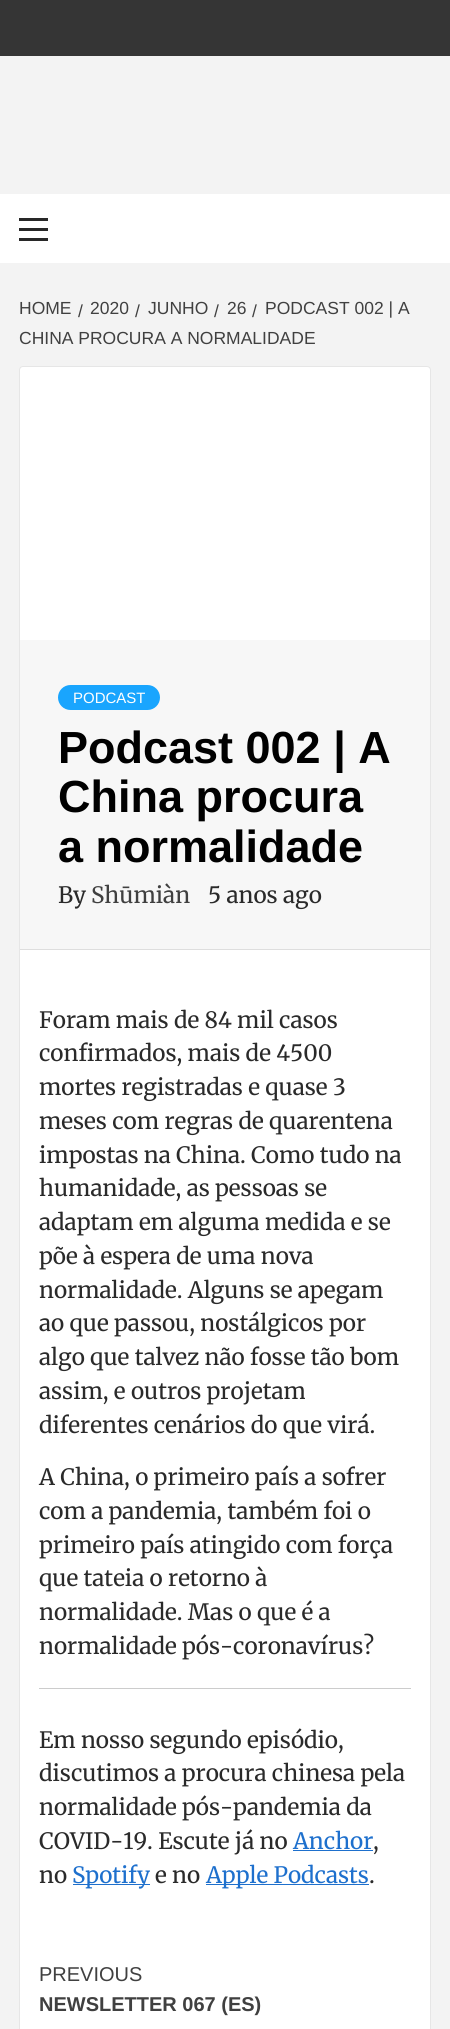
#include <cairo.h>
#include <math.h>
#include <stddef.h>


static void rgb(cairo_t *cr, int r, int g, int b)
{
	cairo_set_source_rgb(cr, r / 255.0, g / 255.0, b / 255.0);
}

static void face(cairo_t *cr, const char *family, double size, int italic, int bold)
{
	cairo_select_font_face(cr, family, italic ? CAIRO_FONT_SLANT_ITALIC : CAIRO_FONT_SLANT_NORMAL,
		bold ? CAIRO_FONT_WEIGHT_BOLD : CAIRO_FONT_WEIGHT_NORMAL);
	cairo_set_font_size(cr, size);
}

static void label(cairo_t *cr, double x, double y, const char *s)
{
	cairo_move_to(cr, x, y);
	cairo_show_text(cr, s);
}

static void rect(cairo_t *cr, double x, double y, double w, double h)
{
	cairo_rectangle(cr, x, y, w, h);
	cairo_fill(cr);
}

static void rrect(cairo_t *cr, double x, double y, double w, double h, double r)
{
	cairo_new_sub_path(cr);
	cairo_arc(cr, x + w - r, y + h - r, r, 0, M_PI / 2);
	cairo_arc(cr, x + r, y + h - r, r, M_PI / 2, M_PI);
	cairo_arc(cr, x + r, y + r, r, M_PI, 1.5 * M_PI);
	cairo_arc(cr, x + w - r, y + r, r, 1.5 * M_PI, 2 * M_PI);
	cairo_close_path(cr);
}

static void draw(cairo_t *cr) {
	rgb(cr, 243, 243, 243);
	cairo_paint(cr);
	rgb(cr, 53, 53, 53);
	rect(cr, 0, 0, 450, 56);
	rgb(cr, 255, 255, 255);
	rect(cr, 0, 194, 450, 69);
	rgb(cr, 40, 40, 40);
	rect(cr, 19, 228, 29, 3);
	rect(cr, 19, 218, 29, 3);
	rect(cr, 19, 238, 29, 3);
	face(cr, "Liberation Sans", 17.5, 0, 0);
	rgb(cr, 64, 64, 64);
	label(cr, 252, 317, "/");
	label(cr, 265, 314, "PODCAST 002 | A");
	label(cr, 19, 344, "CHINA PROCURA A NORMALIDADE");
	label(cr, 19, 314, "HOME");
	label(cr, 78, 317, "/");
	label(cr, 90, 314, "2020");
	label(cr, 135, 317, "/");
	label(cr, 148, 314, "JUNHO");
	label(cr, 214, 317, "/");
	label(cr, 227, 314, "26");
	rgb(cr, 255, 255, 255);
	rrect(cr, 19, 366, 412, 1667, 4);
	cairo_fill(cr);
	rrect(cr, 19.5, 366.5, 411, 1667, 3.5);
	cairo_set_source_rgba(cr, 0, 0.004, 0.004, 0.1);
	cairo_set_line_width(cr, 1);
	cairo_stroke(cr);
	rgb(cr, 247, 247, 247);
	rect(cr, 20, 640, 410, 309);
	rgb(cr, 222, 222, 222);
	rect(cr, 20, 949, 410, 1);
	rgb(cr, 25, 165, 254);
	rrect(cr, 58, 685, 102, 25, 12.5);
	cairo_fill(cr);
	face(cr, "Liberation Sans", 15, 0, 0);
	rgb(cr, 254, 254, 254);
	label(cr, 73, 703, "PODCAST");
	face(cr, "Liberation Sans", 45, 0, 1);
	rgb(cr, 0, 0, 0);
	label(cr, 58, 763, "Podcast 002 | A");
	label(cr, 58, 812, "China procura");
	label(cr, 58, 862, "a normalidade");
	face(cr, "Merriweather", 22.5, 0, 0);
	rgb(cr, 42, 42, 42);
	label(cr, 58, 903, "By");
	rgb(cr, 64, 64, 64);
	label(cr, 91, 903, "Shūmiàn");
	rgb(cr, 42, 42, 42);
	label(cr, 208, 903, "5 anos ago");
	label(cr, 39, 1028, "Foram mais de 84 mil casos");
	label(cr, 39, 1061, "confirmados, mais de 4500");
	label(cr, 39, 1095, "mortes registradas e quase 3");
	label(cr, 39, 1129, "meses com regras de quarentena");
	label(cr, 39, 1163, "impostas na China. Como tudo na");
	label(cr, 39, 1196, "humanidade, as pessoas se");
	label(cr, 39, 1230, "adaptam em alguma medida e se");
	label(cr, 39, 1264, "põe à espera de uma nova");
	label(cr, 39, 1298, "normalidade. Alguns se apegam");
	label(cr, 39, 1331, "ao que passou, nostálgicos por");
	label(cr, 39, 1365, "algo que talvez não fosse tão bom");
	label(cr, 39, 1399, "assim, e outros projetam");
	label(cr, 39, 1433, "diferentes cenários do que virá.");
	label(cr, 39, 1485, "A China, o primeiro país a sofrer");
	label(cr, 39, 1519, "com a pandemia, também foi o");
	label(cr, 39, 1553, "primeiro país atingido com força");
	label(cr, 39, 1586, "que tateia o retorno à");
	label(cr, 39, 1620, "normalidade. Mas o que é a");
	label(cr, 39, 1654, "normalidade pós-coronavírus?");
	rgb(cr, 204, 204, 204);
	rect(cr, 39, 1688, 372, 1);
	rgb(cr, 42, 42, 42);
	label(cr, 39, 1748, "Em nosso segundo episódio,");
	label(cr, 39, 1781, "discutimos a procura chinesa pela");
	label(cr, 39, 1815, "normalidade pós-pandemia da");
	label(cr, 39, 1849, "COVID-19. Escute já no");
	rgb(cr, 30, 112, 205);
	label(cr, 293, 1849, "Anchor");
	rect(cr, 293, 1850, 80, 1);
	rgb(cr, 42, 42, 42);
	label(cr, 373, 1849, ",");
	label(cr, 39, 1883, "no");
	rgb(cr, 30, 112, 205);
	rect(cr, 73, 1884, 77, 1);
	label(cr, 72, 1883, "Spotify");
	rgb(cr, 42, 42, 42);
	label(cr, 155, 1883, "e no");
	rgb(cr, 30, 112, 205);
	rect(cr, 206, 1884, 163, 1);
	label(cr, 206, 1883, "Apple Podcasts");
	rgb(cr, 42, 42, 42);
	label(cr, 369, 1883, ".");
	face(cr, "Liberation Sans", 20, 0, 0);
	rgb(cr, 64, 64, 64);
	label(cr, 39, 1981, "PREVIOUS");
	face(cr, "Liberation Sans", 20, 0, 1);
	label(cr, 39, 2011, "NEWSLETTER 067 (ES)");
}

int main(void) {
	cairo_surface_t *surface = cairo_image_surface_create(CAIRO_FORMAT_RGB24, 450, 2029);
	cairo_t *cr = cairo_create(surface);
	cairo_font_options_t *options = cairo_font_options_create();
	cairo_font_options_set_hint_metrics(options, CAIRO_HINT_METRICS_OFF);
	cairo_font_options_set_hint_style(options, CAIRO_HINT_STYLE_NONE);
	cairo_set_font_options(cr, options);
	cairo_set_miter_limit(cr, 4);
	draw(cr);
	cairo_surface_write_to_png(surface, "render.png");
	cairo_font_options_destroy(options);
	cairo_destroy(cr);
	cairo_surface_destroy(surface);
	return 0;
}
